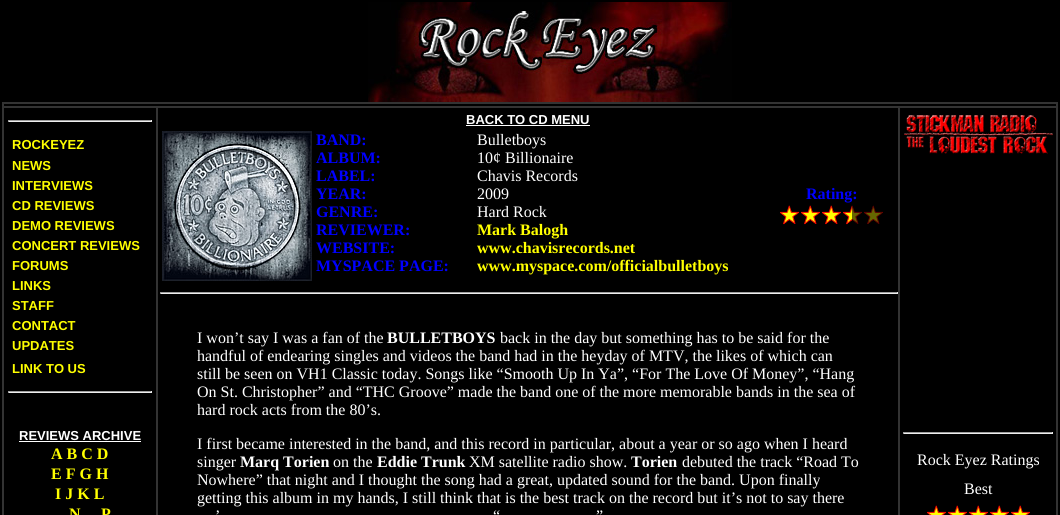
#include <cairo.h>
#include <math.h>
#include <stddef.h>


static void rgb(cairo_t *cr, int r, int g, int b)
{
	cairo_set_source_rgb(cr, r / 255.0, g / 255.0, b / 255.0);
}

static void face(cairo_t *cr, const char *family, double size, int italic, int bold)
{
	cairo_select_font_face(cr, family, italic ? CAIRO_FONT_SLANT_ITALIC : CAIRO_FONT_SLANT_NORMAL,
		bold ? CAIRO_FONT_WEIGHT_BOLD : CAIRO_FONT_WEIGHT_NORMAL);
	cairo_set_font_size(cr, size);
}

static void label(cairo_t *cr, double x, double y, const char *s)
{
	cairo_move_to(cr, x, y);
	cairo_show_text(cr, s);
}

static void rect(cairo_t *cr, double x, double y, double w, double h)
{
	cairo_rectangle(cr, x, y, w, h);
	cairo_fill(cr);
}

static void image(cairo_t *cr, const char *path, double x, double y, double w, double h)
{
	cairo_surface_t *image = cairo_image_surface_create_from_png(path);
	cairo_save(cr);
	cairo_set_source_surface(cr, image, x, y);
	cairo_rectangle(cr, x, y, w, h);
	cairo_fill(cr);
	cairo_restore(cr);
	cairo_surface_destroy(image);
}

static void draw(cairo_t *cr) {
	rgb(cr, 0, 0, 0);
	cairo_paint(cr);
	image(cr, "image0.png", 368, 2, 364, 100);
	cairo_rectangle(cr, 2.5, 102.5, 1055, 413);
	rgb(cr, 51, 51, 51);
	cairo_set_line_width(cr, 1);
	cairo_stroke(cr);
	cairo_rectangle(cr, 3.5, 103.5, 1053, 3);
	cairo_stroke(cr);
	cairo_rectangle(cr, 3.5, 107.5, 153, 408);
	cairo_stroke(cr);
	rgb(cr, 159, 159, 159);
	rect(cr, 8, 120, 144, 1);
	rgb(cr, 238, 238, 238);
	rect(cr, 151, 120, 1, 2);
	rect(cr, 8, 121, 144, 1);
	rgb(cr, 159, 159, 159);
	rect(cr, 8, 120, 1, 2);
	face(cr, "Liberation Sans", 13, 0, 1);
	rgb(cr, 255, 255, 0);
	label(cr, 12, 149, "ROCKEYEZ");
	label(cr, 12, 170, "NEWS");
	label(cr, 12, 190, "INTERVIEWS");
	label(cr, 12, 210, "CD REVIEWS");
	label(cr, 12, 230, "DEMO REVIEWS");
	label(cr, 12, 250, "CONCERT REVIEWS");
	label(cr, 12, 270, "FORUMS");
	label(cr, 12, 290, "LINKS");
	label(cr, 12, 310, "STAFF");
	label(cr, 12, 330, "CONTACT");
	label(cr, 12, 350, "UPDATES");
	label(cr, 12, 373, "LINK TO US");
	rgb(cr, 159, 159, 159);
	rect(cr, 8, 391, 144, 1);
	rgb(cr, 238, 238, 238);
	rect(cr, 151, 391, 1, 2);
	rect(cr, 8, 392, 144, 1);
	rgb(cr, 159, 159, 159);
	rect(cr, 8, 391, 1, 2);
	rgb(cr, 255, 255, 255);
	label(cr, 19, 440, "REVIEWS ARCHIVE");
	rect(cr, 19, 441, 122, 1);
	face(cr, "Liberation Serif", 16, 0, 1);
	rgb(cr, 255, 255, 0);
	label(cr, 51, 459, "A B C D");
	label(cr, 51, 479, "E F G H");
	label(cr, 55, 499, "I J K L");
	label(cr, 69, 519, "N");
	label(cr, 101, 519, "P");
	cairo_rectangle(cr, 157.5, 107.5, 741, 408);
	rgb(cr, 51, 51, 51);
	cairo_stroke(cr);
	face(cr, "Liberation Sans", 13, 0, 1);
	rgb(cr, 255, 255, 255);
	label(cr, 466, 124, "BACK TO CD MENU");
	rect(cr, 466, 125, 124, 1);
	image(cr, "image1.png", 162, 131, 150, 150);
	face(cr, "Liberation Serif", 16, 0, 1);
	rgb(cr, 0, 0, 255);
	label(cr, 316, 145, "BAND:");
	label(cr, 316, 163, "ALBUM:");
	label(cr, 316, 181, "LABEL:");
	label(cr, 316, 199, "YEAR:");
	label(cr, 316, 217, "GENRE:");
	label(cr, 316, 235, "REVIEWER:");
	label(cr, 316, 253, "WEBSITE:");
	label(cr, 316, 271, "MYSPACE PAGE:");
	face(cr, "Liberation Serif", 16, 0, 0);
	rgb(cr, 255, 255, 255);
	label(cr, 477, 145, "Bulletboys");
	label(cr, 477, 163, "10¢ Billionaire");
	label(cr, 477, 181, "Chavis Records");
	label(cr, 477, 199, "2009");
	label(cr, 477, 217, "Hard Rock");
	face(cr, "Liberation Serif", 16, 0, 1);
	rgb(cr, 255, 255, 0);
	label(cr, 477, 235, "Mark Balogh");
	label(cr, 477, 253, "www.chavisrecords.net");
	label(cr, 477, 271, "www.myspace.com/officialbulletboys");
	rgb(cr, 0, 0, 255);
	label(cr, 806, 199, "Rating:");
	image(cr, "image2.png", 780, 205, 103, 20);
	rgb(cr, 159, 159, 159);
	rect(cr, 160, 292, 738, 1);
	rgb(cr, 238, 238, 238);
	rect(cr, 897, 292, 1, 2);
	rect(cr, 160, 293, 738, 1);
	rgb(cr, 159, 159, 159);
	rect(cr, 160, 292, 1, 2);
	face(cr, "Liberation Serif", 16, 0, 0);
	rgb(cr, 255, 255, 255);
	label(cr, 197, 343, "I won’t say I was a fan of the");
	face(cr, "Liberation Serif", 16, 0, 1);
	label(cr, 387, 343, "BULLETBOYS");
	face(cr, "Liberation Serif", 16, 0, 0);
	label(cr, 500, 343, "back in the day but something has to be said for the");
	label(cr, 197, 361, "handful of endearing singles and videos the band had in the heyday of MTV, the likes of which can");
	label(cr, 197, 379, "still be seen on VH1 Classic today. Songs like “Smooth Up In Ya”, “For The Love Of Money”, “Hang");
	label(cr, 197, 397, "On St. Christopher” and “THC Groove” made the band one of the more memorable bands in the sea of");
	label(cr, 197, 415, "hard rock acts from the 80’s.");
	label(cr, 197, 449, "I first became interested in the band, and this record in particular, about a year or so ago when I heard");
	label(cr, 197, 467, "singer");
	face(cr, "Liberation Serif", 16, 0, 1);
	label(cr, 240, 467, "Marq Torien");
	face(cr, "Liberation Serif", 16, 0, 0);
	label(cr, 333, 467, "on the");
	face(cr, "Liberation Serif", 16, 0, 1);
	label(cr, 377, 467, "Eddie Trunk");
	face(cr, "Liberation Serif", 16, 0, 0);
	label(cr, 469, 467, "XM satellite radio show.");
	face(cr, "Liberation Serif", 16, 0, 1);
	label(cr, 631, 467, "Torien");
	face(cr, "Liberation Serif", 16, 0, 0);
	label(cr, 682, 467, "debuted the track “Road To");
	label(cr, 197, 485, "Nowhere” that night and I thought the song had a great, updated sound for the band. Upon finally");
	label(cr, 197, 503, "getting this album in my hands, I still think that is the best track on the record but it’s not to say there");
	label(cr, 215, 521, "’");
	label(cr, 493, 521, "“");
	label(cr, 596, 521, "”");
	cairo_rectangle(cr, 899.5, 107.5, 157, 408);
	rgb(cr, 51, 51, 51);
	cairo_stroke(cr);
	image(cr, "image3.png", 904, 115, 149, 39);
	rgb(cr, 159, 159, 159);
	rect(cr, 903, 432, 150, 1);
	rgb(cr, 238, 238, 238);
	rect(cr, 1052, 432, 1, 2);
	rect(cr, 903, 433, 150, 1);
	rgb(cr, 159, 159, 159);
	rect(cr, 903, 432, 1, 2);
	rgb(cr, 255, 255, 255);
	label(cr, 917, 465, "Rock Eyez Ratings");
	label(cr, 964, 494, "Best");
	image(cr, "image4.png", 927, 505, 103, 10);
}

int main(void) {
	cairo_surface_t *surface = cairo_image_surface_create(CAIRO_FORMAT_RGB24, 1060, 515);
	cairo_t *cr = cairo_create(surface);
	cairo_font_options_t *options = cairo_font_options_create();
	cairo_font_options_set_hint_metrics(options, CAIRO_HINT_METRICS_OFF);
	cairo_font_options_set_hint_style(options, CAIRO_HINT_STYLE_NONE);
	cairo_set_font_options(cr, options);
	cairo_set_miter_limit(cr, 4);
	draw(cr);
	cairo_surface_write_to_png(surface, "render.png");
	cairo_font_options_destroy(options);
	cairo_destroy(cr);
	cairo_surface_destroy(surface);
	return 0;
}
